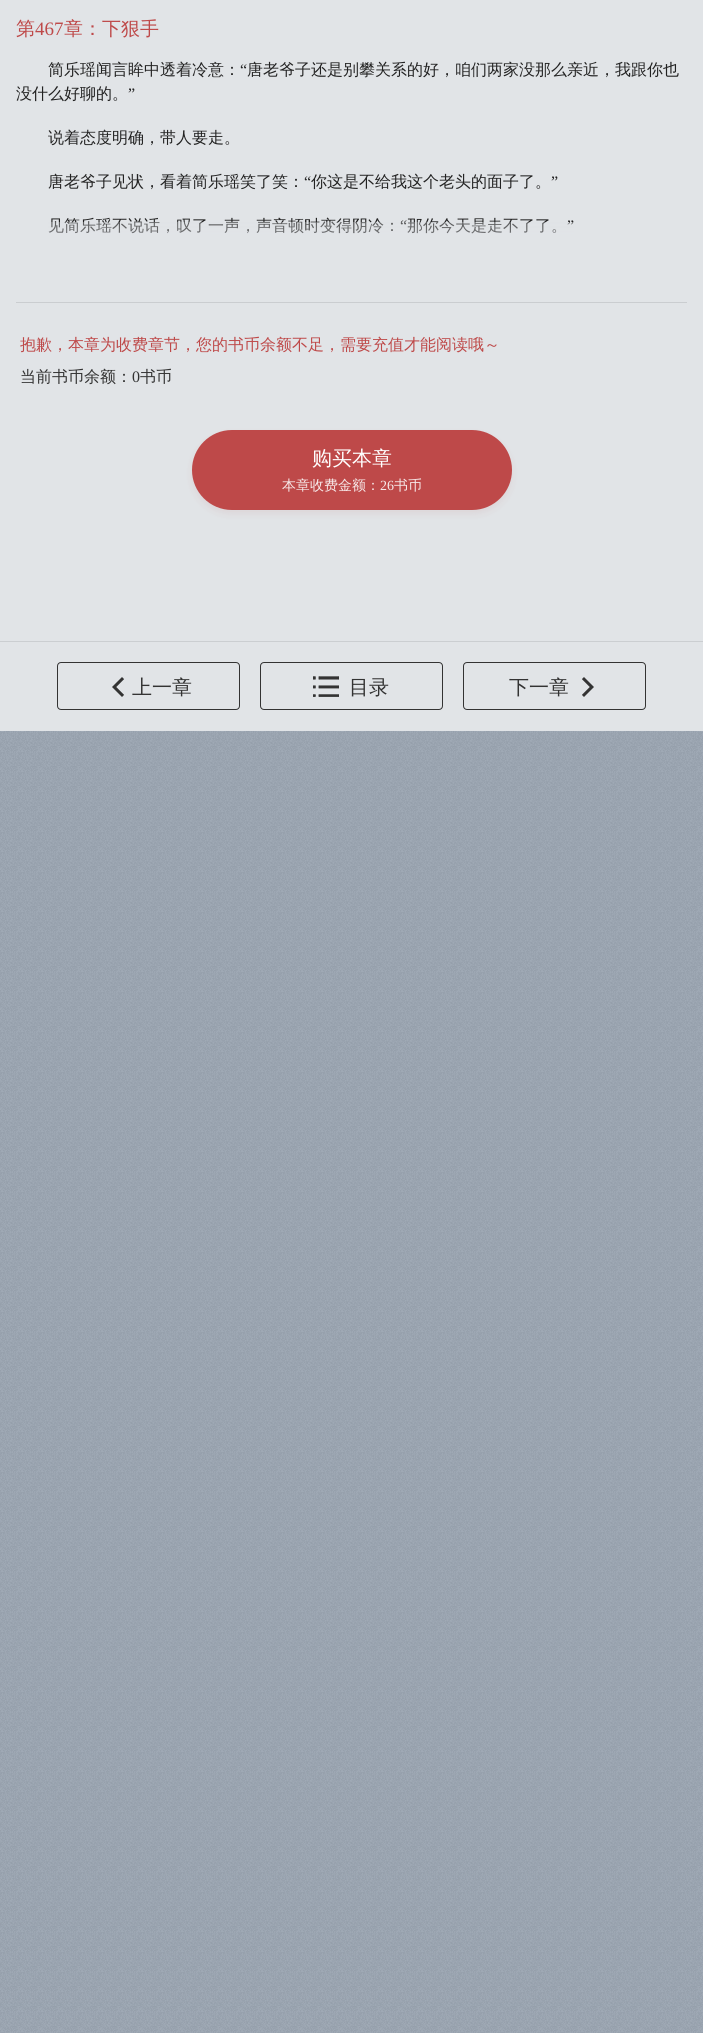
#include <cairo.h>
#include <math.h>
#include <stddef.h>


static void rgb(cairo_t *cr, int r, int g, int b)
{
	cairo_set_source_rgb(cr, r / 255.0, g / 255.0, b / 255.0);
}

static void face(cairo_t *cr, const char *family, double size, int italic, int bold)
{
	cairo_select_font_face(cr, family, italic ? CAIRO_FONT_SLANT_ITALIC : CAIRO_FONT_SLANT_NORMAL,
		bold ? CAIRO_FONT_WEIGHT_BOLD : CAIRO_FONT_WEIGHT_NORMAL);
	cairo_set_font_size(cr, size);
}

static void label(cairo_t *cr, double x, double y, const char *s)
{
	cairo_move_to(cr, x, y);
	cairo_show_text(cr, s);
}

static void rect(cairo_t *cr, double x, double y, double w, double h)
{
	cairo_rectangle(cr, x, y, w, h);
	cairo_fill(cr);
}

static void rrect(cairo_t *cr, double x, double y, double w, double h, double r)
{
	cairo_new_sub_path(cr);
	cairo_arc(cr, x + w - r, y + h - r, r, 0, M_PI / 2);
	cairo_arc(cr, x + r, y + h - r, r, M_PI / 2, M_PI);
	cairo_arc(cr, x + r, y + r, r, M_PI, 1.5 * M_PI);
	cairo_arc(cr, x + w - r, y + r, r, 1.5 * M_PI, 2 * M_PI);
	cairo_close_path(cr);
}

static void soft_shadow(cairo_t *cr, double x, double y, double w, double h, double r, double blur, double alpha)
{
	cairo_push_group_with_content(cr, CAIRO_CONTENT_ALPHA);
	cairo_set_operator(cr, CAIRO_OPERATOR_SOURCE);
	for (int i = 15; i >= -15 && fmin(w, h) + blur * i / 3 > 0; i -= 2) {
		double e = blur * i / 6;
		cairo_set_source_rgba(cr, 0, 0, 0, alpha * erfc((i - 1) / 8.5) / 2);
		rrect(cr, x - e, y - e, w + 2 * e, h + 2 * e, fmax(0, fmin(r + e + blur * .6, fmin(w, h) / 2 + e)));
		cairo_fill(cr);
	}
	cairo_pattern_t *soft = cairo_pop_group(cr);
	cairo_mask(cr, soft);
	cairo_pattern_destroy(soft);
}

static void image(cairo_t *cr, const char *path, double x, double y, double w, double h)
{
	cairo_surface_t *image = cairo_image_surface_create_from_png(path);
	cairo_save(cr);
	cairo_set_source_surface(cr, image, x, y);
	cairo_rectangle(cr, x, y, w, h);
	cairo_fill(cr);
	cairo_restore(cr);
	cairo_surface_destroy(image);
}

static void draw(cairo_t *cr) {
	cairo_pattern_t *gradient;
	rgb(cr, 255, 255, 255);
	cairo_paint(cr);
	image(cr, "image0.png", 0, 731, 703, 1302);
	rgb(cr, 225, 228, 231);
	rect(cr, 0, 0, 703, 731);
	face(cr, "WenQuanYi Zen Hei Medium", 19, 0, 0);
	rgb(cr, 190, 73, 73);
	label(cr, 16, 35, "第");
	face(cr, "Liberation Serif", 19, 0, 0);
	label(cr, 35, 35, "467");
	face(cr, "WenQuanYi Zen Hei Medium", 19, 0, 0);
	label(cr, 64, 35, "章：下狠手");
	face(cr, "WenQuanYi Zen Hei Medium", 16, 0, 0);
	rgb(cr, 34, 34, 34);
	label(cr, 48, 75, "简乐瑶闻言眸中透着冷意：");
	face(cr, "Liberation Serif", 16, 0, 0);
	label(cr, 240, 75, "“");
	face(cr, "WenQuanYi Zen Hei Medium", 16, 0, 0);
	label(cr, 247, 75, "唐老爷子还是别攀关系的好，咱们两家没那么亲近，我跟你也");
	label(cr, 16, 99, "没什么好聊的。");
	face(cr, "Liberation Serif", 16, 0, 0);
	label(cr, 128, 99, "”");
	face(cr, "WenQuanYi Zen Hei Medium", 16, 0, 0);
	label(cr, 48, 143, "说着态度明确，带人要走。");
	label(cr, 48, 187, "唐老爷子见状，看着简乐瑶笑了笑：");
	face(cr, "Liberation Serif", 16, 0, 0);
	label(cr, 304, 187, "“");
	face(cr, "WenQuanYi Zen Hei Medium", 16, 0, 0);
	label(cr, 311, 187, "你这是不给我这个老头的面子了。");
	face(cr, "Liberation Serif", 16, 0, 0);
	label(cr, 551, 187, "”");
	face(cr, "WenQuanYi Zen Hei Medium", 16, 0, 0);
	label(cr, 48, 231, "见简乐瑶不说话，叹了一声，声音顿时变得阴冷：");
	face(cr, "Liberation Serif", 16, 0, 0);
	label(cr, 400, 231, "“");
	face(cr, "WenQuanYi Zen Hei Medium", 16, 0, 0);
	label(cr, 407, 231, "那你今天是走不了了。");
	face(cr, "Liberation Serif", 16, 0, 0);
	label(cr, 567, 231, "”");
	rgb(cr, 202, 205, 208);
	rect(cr, 16, 302, 671, 1);
	gradient = cairo_pattern_create_linear(352, 222, 352, 302);
	cairo_pattern_add_color_stop_rgba(gradient, 0, 0.882, 0.894, 0.906, 0.3);
	cairo_pattern_add_color_stop_rgba(gradient, 1, 0.882, 0.894, 0.906, 1);
	cairo_set_source(cr, gradient);
	cairo_pattern_destroy(gradient);
	rect(cr, 48, 222, 526, 12);
	face(cr, "WenQuanYi Zen Hei Medium", 16, 0, 0);
	rgb(cr, 190, 73, 73);
	label(cr, 20, 350, "抱歉，本章为收费章节，您的书币余额不足，需要充值才能阅读哦～");
	rgb(cr, 51, 51, 51);
	label(cr, 20, 382, "当前书币余额：");
	face(cr, "Liberation Serif", 16, 0, 0);
	label(cr, 132, 382, "0");
	face(cr, "WenQuanYi Zen Hei Medium", 16, 0, 0);
	label(cr, 140, 382, "书币");
	rgb(cr, 164, 42, 42);
	soft_shadow(cr, 192, 434, 320, 80, 40, 4, 0.08);
	rgb(cr, 190, 73, 73);
	rrect(cr, 192, 430, 320, 80, 40);
	cairo_fill(cr);
	face(cr, "WenQuanYi Zen Hei Medium", 20, 0, 0);
	rgb(cr, 255, 255, 255);
	label(cr, 312, 465, "购买本章");
	face(cr, "WenQuanYi Zen Hei Medium", 14, 0, 0);
	rgb(cr, 247, 233, 233);
	label(cr, 282, 490, "本章收费金额：");
	face(cr, "Liberation Serif", 14, 0, 0);
	label(cr, 380, 490, "26");
	face(cr, "WenQuanYi Zen Hei Medium", 14, 0, 0);
	label(cr, 394, 490, "书币");
	rgb(cr, 203, 206, 209);
	rect(cr, 0, 641, 703, 1);
	rrect(cr, 57.5, 662.5, 182, 47, 3.5);
	rgb(cr, 51, 51, 51);
	cairo_set_line_width(cr, 1);
	cairo_stroke(cr);
	image(cr, "image1.png", 112, 677, 12, 20);
	face(cr, "WenQuanYi Zen Hei Medium", 20, 0, 0);
	label(cr, 132, 694, "上一章");
	rrect(cr, 260.5, 662.5, 182, 47, 3.5);
	cairo_stroke(cr);
	image(cr, "image2.png", 313, 676, 26, 21);
	label(cr, 349, 694, "目录");
	rrect(cr, 463.5, 662.5, 182, 47, 3.5);
	cairo_stroke(cr);
	label(cr, 509, 694, "下一章");
	image(cr, "image3.png", 582, 677, 12, 20);
}

int main(void) {
	cairo_surface_t *surface = cairo_image_surface_create(CAIRO_FORMAT_RGB24, 703, 2033);
	cairo_t *cr = cairo_create(surface);
	cairo_font_options_t *options = cairo_font_options_create();
	cairo_font_options_set_hint_metrics(options, CAIRO_HINT_METRICS_OFF);
	cairo_font_options_set_hint_style(options, CAIRO_HINT_STYLE_NONE);
	cairo_set_font_options(cr, options);
	cairo_set_miter_limit(cr, 4);
	draw(cr);
	cairo_surface_write_to_png(surface, "render.png");
	cairo_font_options_destroy(options);
	cairo_destroy(cr);
	cairo_surface_destroy(surface);
	return 0;
}
